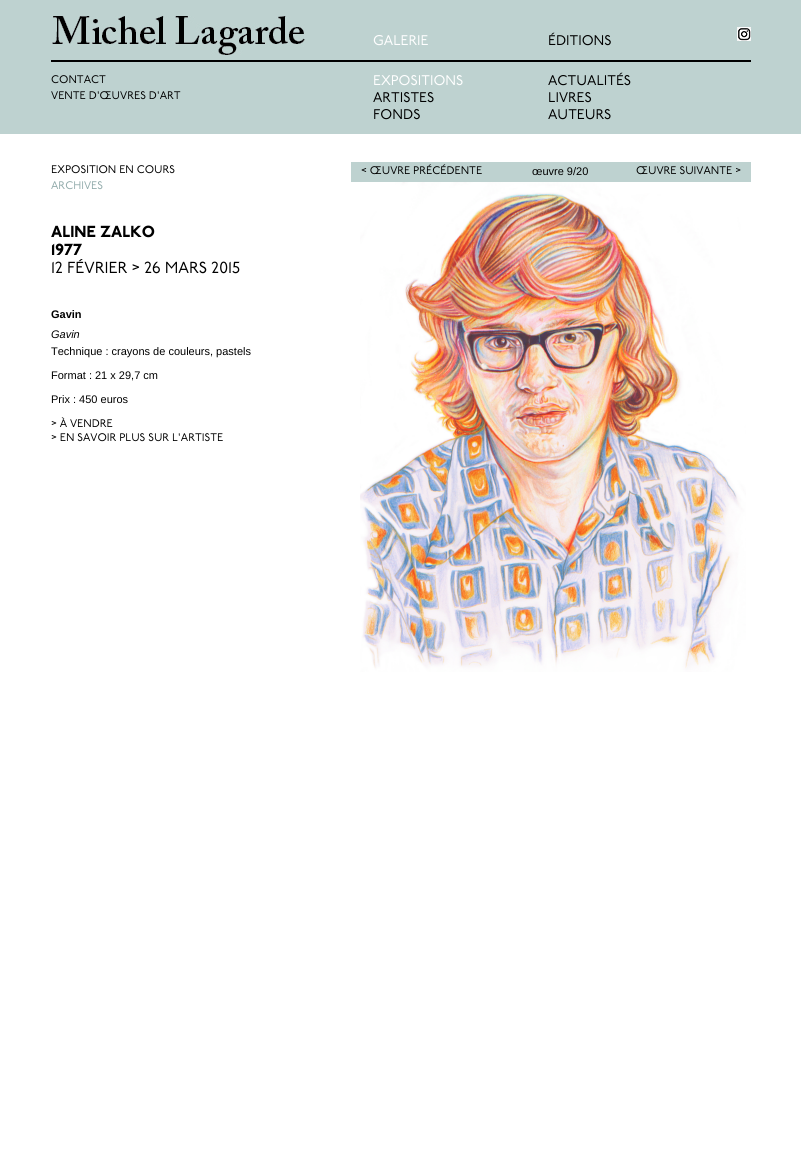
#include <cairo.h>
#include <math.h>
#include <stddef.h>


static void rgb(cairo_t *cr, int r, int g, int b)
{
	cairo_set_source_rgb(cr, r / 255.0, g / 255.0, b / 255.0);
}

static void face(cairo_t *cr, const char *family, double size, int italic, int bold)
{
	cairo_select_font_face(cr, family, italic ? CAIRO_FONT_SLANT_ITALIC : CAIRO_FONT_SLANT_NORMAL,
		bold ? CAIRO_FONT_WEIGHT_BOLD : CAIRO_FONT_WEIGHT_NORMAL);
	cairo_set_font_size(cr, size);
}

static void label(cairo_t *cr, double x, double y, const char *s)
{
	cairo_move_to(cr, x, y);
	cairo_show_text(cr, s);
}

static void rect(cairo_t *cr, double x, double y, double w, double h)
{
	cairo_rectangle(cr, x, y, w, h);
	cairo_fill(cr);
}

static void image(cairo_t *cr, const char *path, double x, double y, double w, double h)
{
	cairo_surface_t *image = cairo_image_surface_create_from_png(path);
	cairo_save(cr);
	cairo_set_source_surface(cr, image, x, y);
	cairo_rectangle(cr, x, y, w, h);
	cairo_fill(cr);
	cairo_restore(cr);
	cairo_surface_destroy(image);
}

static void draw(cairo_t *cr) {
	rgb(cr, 255, 255, 255);
	cairo_paint(cr);
	rgb(cr, 190, 210, 208);
	rect(cr, 0, 0, 801, 134);
	rgb(cr, 0, 0, 0);
	rect(cr, 51, 60, 700, 2);
	image(cr, "image0.png", 52, 16, 253, 39);
	face(cr, "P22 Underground", 14, 0, 0);
	rgb(cr, 255, 255, 255);
	label(cr, 373, 45, "GALERIE");
	label(cr, 373, 85, "EXPOSITIONS");
	rgb(cr, 0, 0, 0);
	label(cr, 373, 102, "ARTISTES");
	label(cr, 373, 119, "FONDS");
	label(cr, 548, 45, "ÉDITIONS");
	label(cr, 548, 85, "ACTUALITÉS");
	label(cr, 548, 102, "LIVRES");
	label(cr, 548, 119, "AUTEURS");
	image(cr, "image1.png", 737, 27, 14, 14);
	face(cr, "P22 Underground", 11, 0, 0);
	label(cr, 51, 83, "CONTACT");
	label(cr, 51, 99, "VENTE D'ŒUVRES D'ART");
	label(cr, 51, 173, "EXPOSITION EN COURS");
	rgb(cr, 144, 170, 170);
	label(cr, 51, 189, "ARCHIVES");
	face(cr, "P22 Underground Black", 16, 0, 0);
	rgb(cr, 0, 0, 0);
	label(cr, 51, 237, "ALINE ZALKO");
	label(cr, 51, 255, "1977");
	face(cr, "P22 Underground", 16, 0, 0);
	label(cr, 51, 273, "12 FÉVRIER > 26 MARS 2015");
	face(cr, "Liberation Sans", 11, 0, 1);
	label(cr, 51, 318, "Gavin");
	face(cr, "Liberation Sans", 11, 1, 0);
	label(cr, 51, 338, "Gavin");
	face(cr, "Liberation Sans", 11, 0, 0);
	label(cr, 51, 355, "Technique : crayons de couleurs, pastels");
	label(cr, 51, 379, "Format : 21 x 29,7 cm");
	label(cr, 51, 403, "Prix : 450 euros");
	face(cr, "P22 Underground", 11, 0, 0);
	label(cr, 51, 427, "> À VENDRE");
	label(cr, 51, 441, "> EN SAVOIR PLUS SUR L'ARTISTE");
	rgb(cr, 190, 210, 208);
	rect(cr, 351, 162, 400, 20);
	rgb(cr, 0, 0, 0);
	label(cr, 361, 174, "< ŒUVRE PRÉCÉDENTE");
	face(cr, "Liberation Sans", 11, 0, 0);
	label(cr, 532, 175, "œuvre 9/20");
	face(cr, "P22 Underground", 11, 0, 0);
	label(cr, 636, 174, "ŒUVRE SUIVANTE >");
	image(cr, "image2.png", 360, 182, 386, 490);
}

int main(void) {
	cairo_surface_t *surface = cairo_image_surface_create(CAIRO_FORMAT_RGB24, 801, 1166);
	cairo_t *cr = cairo_create(surface);
	cairo_font_options_t *options = cairo_font_options_create();
	cairo_font_options_set_hint_metrics(options, CAIRO_HINT_METRICS_OFF);
	cairo_font_options_set_hint_style(options, CAIRO_HINT_STYLE_NONE);
	cairo_set_font_options(cr, options);
	cairo_set_miter_limit(cr, 4);
	draw(cr);
	cairo_surface_write_to_png(surface, "render.png");
	cairo_font_options_destroy(options);
	cairo_destroy(cr);
	cairo_surface_destroy(surface);
	return 0;
}
